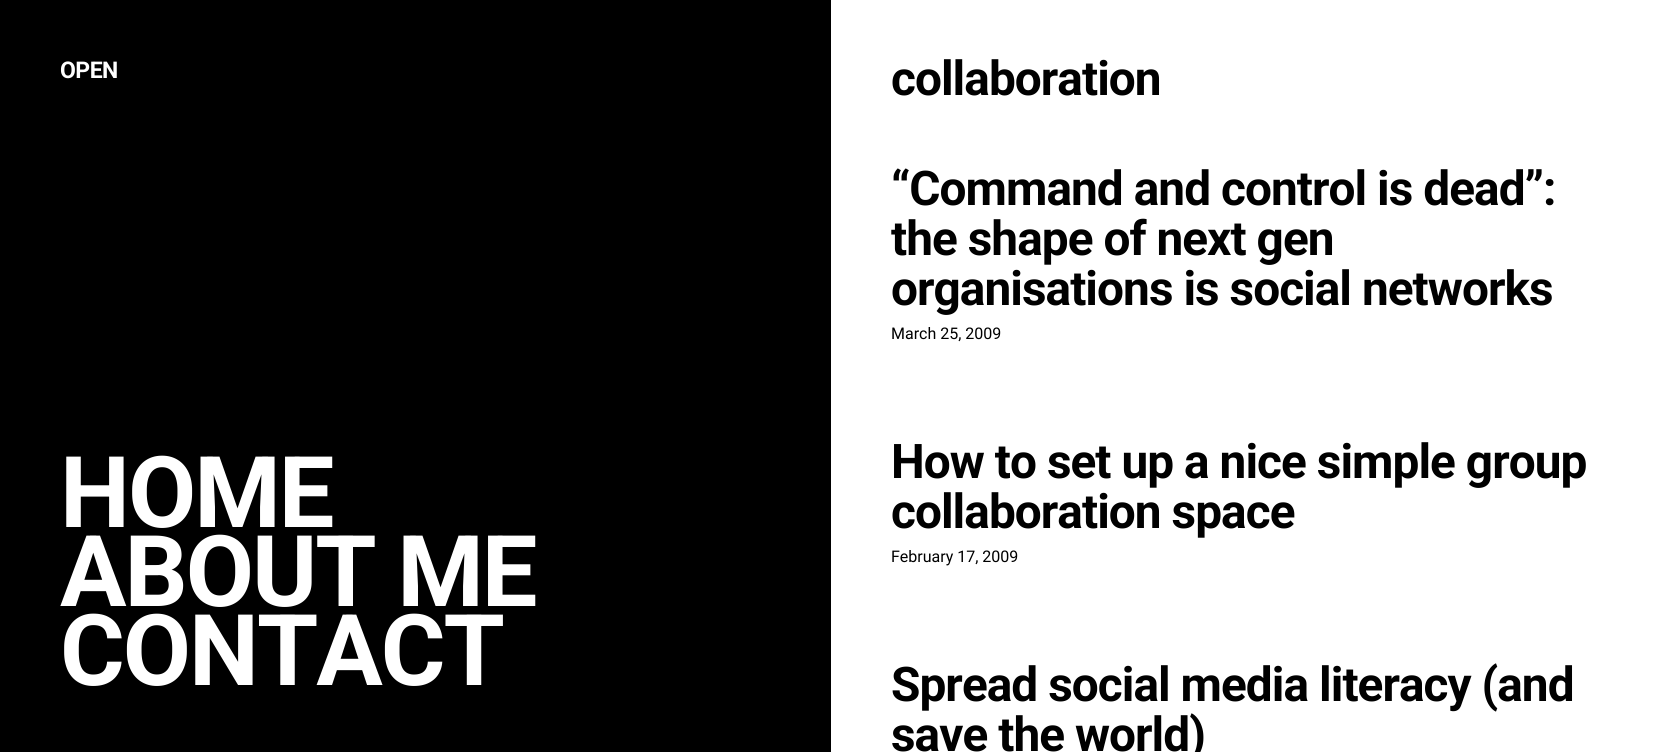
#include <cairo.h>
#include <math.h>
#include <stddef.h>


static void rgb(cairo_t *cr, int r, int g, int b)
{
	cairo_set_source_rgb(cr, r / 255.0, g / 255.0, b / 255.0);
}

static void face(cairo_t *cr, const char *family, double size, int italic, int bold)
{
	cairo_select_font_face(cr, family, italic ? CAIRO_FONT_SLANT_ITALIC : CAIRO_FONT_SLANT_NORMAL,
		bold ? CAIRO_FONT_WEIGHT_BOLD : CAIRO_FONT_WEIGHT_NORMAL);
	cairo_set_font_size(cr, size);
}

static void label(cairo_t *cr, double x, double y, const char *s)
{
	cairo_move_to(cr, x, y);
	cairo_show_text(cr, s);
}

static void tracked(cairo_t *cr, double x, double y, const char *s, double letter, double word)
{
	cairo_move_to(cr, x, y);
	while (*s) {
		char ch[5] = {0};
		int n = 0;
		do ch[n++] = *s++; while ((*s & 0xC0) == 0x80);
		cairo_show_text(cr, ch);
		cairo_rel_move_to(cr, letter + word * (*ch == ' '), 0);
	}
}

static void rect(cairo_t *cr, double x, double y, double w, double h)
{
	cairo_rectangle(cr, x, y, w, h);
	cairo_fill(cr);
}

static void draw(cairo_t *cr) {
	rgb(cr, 255, 255, 255);
	cairo_paint(cr);
	rgb(cr, 0, 0, 0);
	rect(cr, 0, 0, 831, 752);
	face(cr, "Roboto", 23, 0, 1);
	rgb(cr, 255, 255, 255);
	tracked(cr, 60, 78, "OPEN", -0.5, 0);
	face(cr, "Roboto", 99, 0, 1);
	tracked(cr, 60, 527, "HOME", -2, 0);
	tracked(cr, 60, 606, "ABOUT ME", -2, 0);
	tracked(cr, 60, 685, "CONTACT", -2, 0);
	face(cr, "Roboto", 47.75, 0, 1);
	rgb(cr, 0, 0, 0);
	tracked(cr, 891, 95, "collaboration", -0.95, 0);
	tracked(cr, 891, 205, "“Command and control is dead”:", -0.95, 0);
	tracked(cr, 891, 255, "the shape of next gen", -0.95, 0);
	tracked(cr, 891, 305, "organisations is social networks", -0.95, 0);
	face(cr, "Roboto", 16, 0, 0);
	label(cr, 891, 339, "March 25, 2009");
	face(cr, "Roboto", 47.75, 0, 1);
	tracked(cr, 891, 478, "How to set up a nice simple group", -0.95, 0);
	tracked(cr, 891, 528, "collaboration space", -0.95, 0);
	face(cr, "Roboto", 16, 0, 0);
	label(cr, 891, 562, "February 17, 2009");
	face(cr, "Roboto", 47.75, 0, 1);
	tracked(cr, 891, 701, "Spread social media literacy (and", -0.95, 0);
	tracked(cr, 891, 751, "save the world)", -0.95, 0);
}

int main(void) {
	cairo_surface_t *surface = cairo_image_surface_create(CAIRO_FORMAT_RGB24, 1661, 752);
	cairo_t *cr = cairo_create(surface);
	cairo_font_options_t *options = cairo_font_options_create();
	cairo_font_options_set_hint_metrics(options, CAIRO_HINT_METRICS_OFF);
	cairo_font_options_set_hint_style(options, CAIRO_HINT_STYLE_NONE);
	cairo_set_font_options(cr, options);
	cairo_set_miter_limit(cr, 4);
	draw(cr);
	cairo_surface_write_to_png(surface, "render.png");
	cairo_font_options_destroy(options);
	cairo_destroy(cr);
	cairo_surface_destroy(surface);
	return 0;
}
